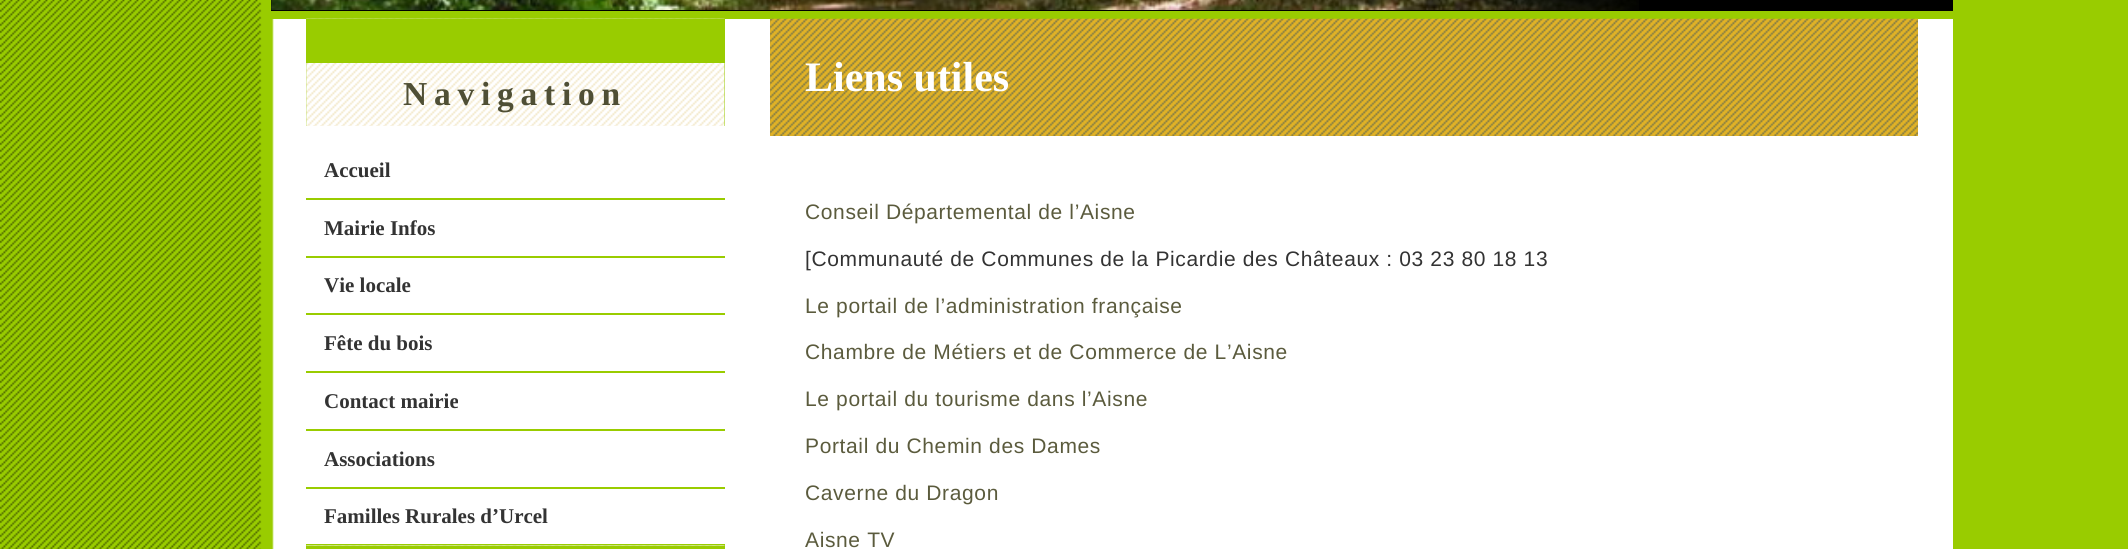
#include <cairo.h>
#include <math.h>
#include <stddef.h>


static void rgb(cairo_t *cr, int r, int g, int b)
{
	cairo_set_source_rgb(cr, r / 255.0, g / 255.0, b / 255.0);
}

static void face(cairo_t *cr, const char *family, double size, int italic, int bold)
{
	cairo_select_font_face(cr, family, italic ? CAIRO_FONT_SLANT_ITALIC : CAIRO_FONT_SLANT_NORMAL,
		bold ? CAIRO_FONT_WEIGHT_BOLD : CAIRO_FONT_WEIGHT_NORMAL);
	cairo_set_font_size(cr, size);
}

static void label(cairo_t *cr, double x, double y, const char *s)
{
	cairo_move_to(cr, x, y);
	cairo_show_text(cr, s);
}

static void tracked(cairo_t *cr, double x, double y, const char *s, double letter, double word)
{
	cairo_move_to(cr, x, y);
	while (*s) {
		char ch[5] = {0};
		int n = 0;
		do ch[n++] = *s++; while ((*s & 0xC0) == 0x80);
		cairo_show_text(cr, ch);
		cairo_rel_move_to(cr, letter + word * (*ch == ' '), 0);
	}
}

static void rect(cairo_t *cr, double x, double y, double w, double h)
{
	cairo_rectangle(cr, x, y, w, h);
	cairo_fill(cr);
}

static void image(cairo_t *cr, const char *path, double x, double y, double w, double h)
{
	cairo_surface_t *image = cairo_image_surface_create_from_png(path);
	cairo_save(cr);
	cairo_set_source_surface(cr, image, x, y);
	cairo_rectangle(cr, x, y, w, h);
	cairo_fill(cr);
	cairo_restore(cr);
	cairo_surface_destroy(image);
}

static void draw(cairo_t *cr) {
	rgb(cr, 153, 204, 0);
	cairo_paint(cr);
	image(cr, "image0.png", 0, 0, 1953, 549);
	rgb(cr, 0, 0, 0);
	rect(cr, 271, 0, 1682, 11);
	image(cr, "image1.png", 271, 0, 1368, 10);
	rgb(cr, 153, 204, 0);
	rect(cr, 271, 11, 1682, 8);
	rect(cr, 306, 63, 419, 63);
	image(cr, "image2.png", 306, 18, 419, 108);
	rect(cr, 306, 19, 419, 44);
	face(cr, "Liberation Serif", 33.5, 0, 1);
	rgb(cr, 79, 79, 53);
	tracked(cr, 403, 105, "Navigation", 6.75, 0);
	rgb(cr, 153, 204, 0);
	rect(cr, 306, 198, 419, 2);
	face(cr, "Liberation Serif", 21, 0, 1);
	rgb(cr, 51, 51, 51);
	label(cr, 324, 177, "Accueil");
	rgb(cr, 153, 204, 0);
	rect(cr, 306, 256, 419, 2);
	rgb(cr, 51, 51, 51);
	label(cr, 324, 235, "Mairie Infos");
	rgb(cr, 153, 204, 0);
	rect(cr, 306, 313, 419, 2);
	rgb(cr, 51, 51, 51);
	label(cr, 324, 292, "Vie locale");
	rgb(cr, 153, 204, 0);
	rect(cr, 306, 371, 419, 2);
	rgb(cr, 51, 51, 51);
	label(cr, 324, 350, "Fête du bois");
	rgb(cr, 153, 204, 0);
	rect(cr, 306, 429, 419, 2);
	rgb(cr, 51, 51, 51);
	label(cr, 324, 408, "Contact mairie");
	rgb(cr, 153, 204, 0);
	rect(cr, 306, 487, 419, 2);
	rgb(cr, 51, 51, 51);
	label(cr, 324, 466, "Associations");
	rgb(cr, 153, 204, 0);
	rect(cr, 306, 544, 419, 5);
	rgb(cr, 51, 51, 51);
	label(cr, 324, 523, "Familles Rurales d’Urcel");
	image(cr, "image3.png", 306, 545, 419, 1);
	image(cr, "image4.png", 770, 18, 1148, 118);
	face(cr, "Liberation Serif", 42, 0, 1);
	rgb(cr, 255, 255, 255);
	label(cr, 805, 91, "Liens utiles");
	face(cr, "Liberation Sans", 21, 0, 0);
	rgb(cr, 91, 91, 61);
	tracked(cr, 805, 219, "Conseil Départemental de l’Aisne", 0.63, 0);
	rgb(cr, 51, 51, 51);
	tracked(cr, 805, 266, "[Communauté de Communes de la Picardie des Châteaux : 03 23 80 18 13", 0.63, 0);
	rgb(cr, 91, 91, 61);
	tracked(cr, 805, 313, "Le portail de l’administration française", 0.63, 0);
	tracked(cr, 805, 359, "Chambre de Métiers et de Commerce de L’Aisne", 0.63, 0);
	tracked(cr, 805, 406, "Le portail du tourisme dans l’Aisne", 0.63, 0);
	tracked(cr, 805, 453, "Portail du Chemin des Dames", 0.63, 0);
	tracked(cr, 805, 500, "Caverne du Dragon", 0.63, 0);
	tracked(cr, 805, 547, "Aisne TV", 0.63, 0);
}

int main(void) {
	cairo_surface_t *surface = cairo_image_surface_create(CAIRO_FORMAT_RGB24, 2128, 549);
	cairo_t *cr = cairo_create(surface);
	cairo_font_options_t *options = cairo_font_options_create();
	cairo_font_options_set_hint_metrics(options, CAIRO_HINT_METRICS_OFF);
	cairo_font_options_set_hint_style(options, CAIRO_HINT_STYLE_NONE);
	cairo_set_font_options(cr, options);
	cairo_set_miter_limit(cr, 4);
	draw(cr);
	cairo_surface_write_to_png(surface, "render.png");
	cairo_font_options_destroy(options);
	cairo_destroy(cr);
	cairo_surface_destroy(surface);
	return 0;
}
